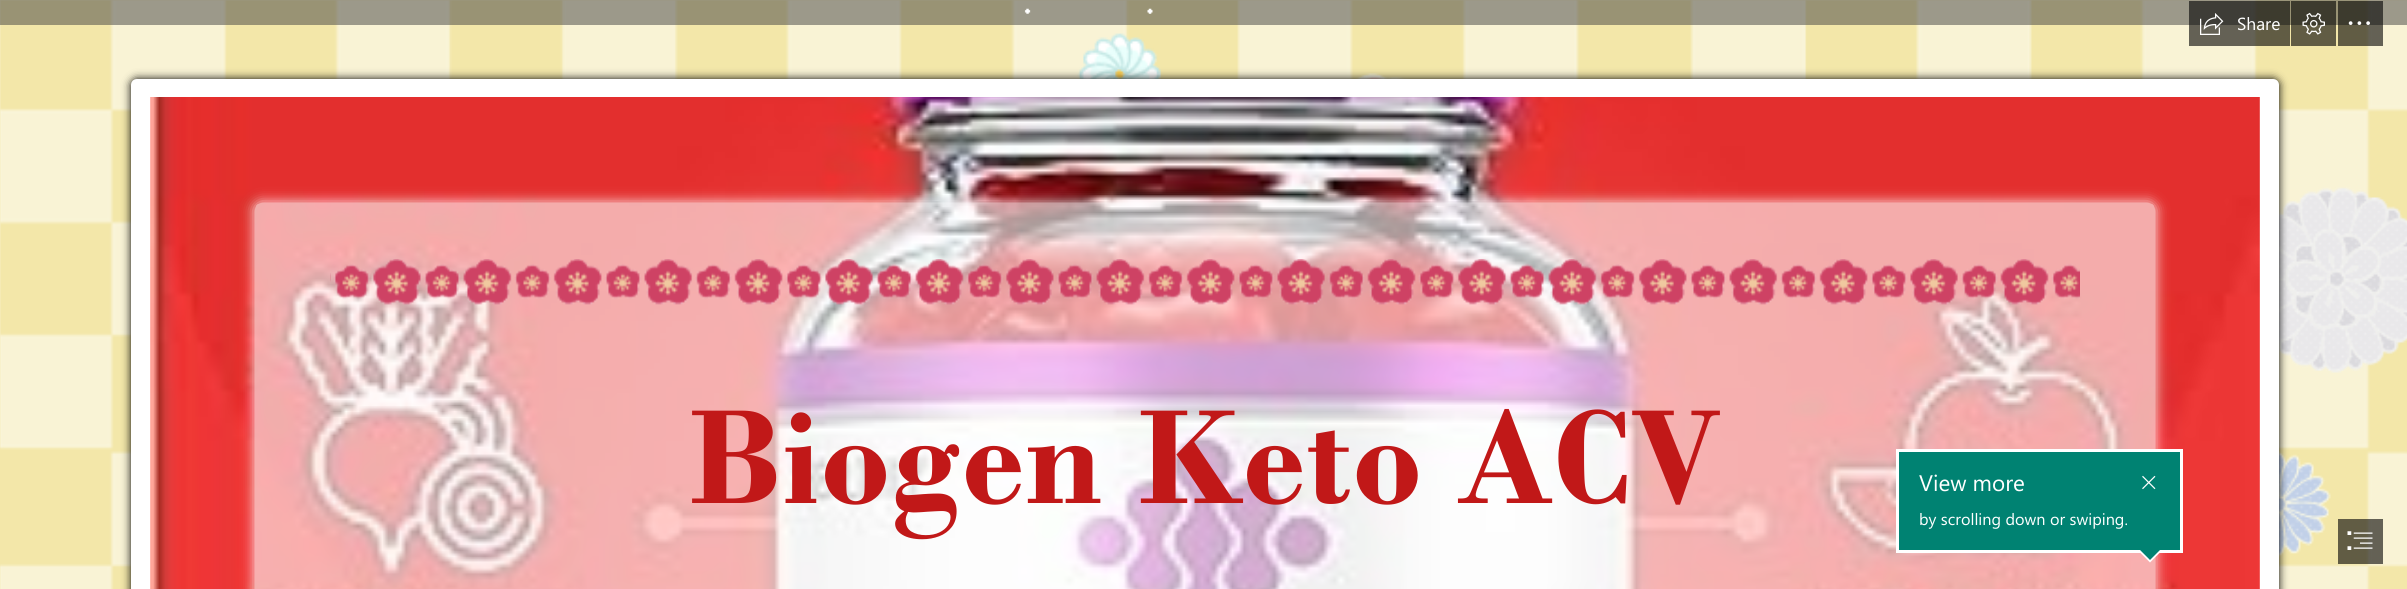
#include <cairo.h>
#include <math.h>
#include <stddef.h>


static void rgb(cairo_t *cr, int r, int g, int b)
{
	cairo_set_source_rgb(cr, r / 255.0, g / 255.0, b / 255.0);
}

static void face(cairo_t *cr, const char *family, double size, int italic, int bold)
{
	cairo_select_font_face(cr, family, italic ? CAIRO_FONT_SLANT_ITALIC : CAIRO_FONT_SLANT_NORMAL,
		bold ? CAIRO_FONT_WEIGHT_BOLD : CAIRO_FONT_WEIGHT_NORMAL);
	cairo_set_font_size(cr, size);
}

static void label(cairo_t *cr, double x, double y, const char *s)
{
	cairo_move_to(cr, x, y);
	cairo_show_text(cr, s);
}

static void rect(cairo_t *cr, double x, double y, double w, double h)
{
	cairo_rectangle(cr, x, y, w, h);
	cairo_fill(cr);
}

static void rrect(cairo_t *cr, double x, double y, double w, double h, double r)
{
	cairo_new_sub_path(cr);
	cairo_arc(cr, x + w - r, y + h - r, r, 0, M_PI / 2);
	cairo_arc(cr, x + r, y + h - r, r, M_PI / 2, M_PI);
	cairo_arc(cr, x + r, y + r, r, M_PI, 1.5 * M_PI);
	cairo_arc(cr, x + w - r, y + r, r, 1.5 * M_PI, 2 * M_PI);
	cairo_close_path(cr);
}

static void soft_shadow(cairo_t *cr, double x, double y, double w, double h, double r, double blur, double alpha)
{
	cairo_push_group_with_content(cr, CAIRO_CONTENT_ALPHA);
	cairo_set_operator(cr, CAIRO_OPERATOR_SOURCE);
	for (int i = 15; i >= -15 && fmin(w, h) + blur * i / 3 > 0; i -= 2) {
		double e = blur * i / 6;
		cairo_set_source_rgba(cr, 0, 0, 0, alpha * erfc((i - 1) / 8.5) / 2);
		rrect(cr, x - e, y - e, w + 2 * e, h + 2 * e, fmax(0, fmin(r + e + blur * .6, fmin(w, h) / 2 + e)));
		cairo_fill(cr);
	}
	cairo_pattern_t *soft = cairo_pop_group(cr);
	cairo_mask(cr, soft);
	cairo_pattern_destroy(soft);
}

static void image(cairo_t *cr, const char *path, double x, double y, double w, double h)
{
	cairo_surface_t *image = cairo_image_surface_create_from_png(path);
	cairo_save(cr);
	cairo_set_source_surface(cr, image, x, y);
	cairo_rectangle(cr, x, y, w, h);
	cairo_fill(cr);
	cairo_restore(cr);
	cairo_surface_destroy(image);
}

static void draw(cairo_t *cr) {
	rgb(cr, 243, 231, 169);
	cairo_paint(cr);
	image(cr, "image4.png", 0, 0, 2407, 589);
	cairo_set_source_rgba(cr, 0.251, 0.251, 0.251, 0.5);
	rect(cr, 0, 0, 2407, 25);
	cairo_set_source_rgba(cr, 0, 0, 0, 0.6);
	rect(cr, 2189, 1, 101, 45);
	image(cr, "image0.png", 2200, 13, 24, 22);
	face(cr, "Segoe UI", 17.5, 0, 0);
	rgb(cr, 255, 255, 255);
	label(cr, 2237, 30, "Share");
	cairo_set_source_rgba(cr, 0, 0, 0, 0.6);
	rect(cr, 2291, 1, 45, 45);
	image(cr, "image1.png", 2302, 12, 23, 23);
	rect(cr, 2338, 1, 45, 45);
	image(cr, "image2.png", 2348, 21, 22, 4);
	image(cr, "image3.png", 1024, 8, 129, 6);
	rgb(cr, 0, 0, 0);
	soft_shadow(cr, 131, 79, 2148, 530, 6, 4.5, 1);
	rgb(cr, 255, 255, 255);
	cairo_new_path(cr);
	cairo_move_to(cr, 137, 79);
	cairo_line_to(cr, 2273, 79);
	cairo_curve_to(cr, 2276.5, 79, 2279, 81.5, 2279, 85);
	cairo_line_to(cr, 2279, 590);
	cairo_line_to(cr, 131, 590);
	cairo_line_to(cr, 131, 85);
	cairo_curve_to(cr, 131, 81.5, 133.5, 79, 137, 79);
	cairo_close_path(cr);
	cairo_fill(cr);
	image(cr, "image5.png", 150, 97, 2110, 492);
	cairo_save(cr);
	cairo_set_fill_rule(cr, CAIRO_FILL_RULE_EVEN_ODD);
	cairo_new_path(cr);
	cairo_move_to(cr, 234, 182);
	cairo_line_to(cr, 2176, 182);
	cairo_line_to(cr, 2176, 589);
	cairo_line_to(cr, 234, 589);
	cairo_close_path(cr);
	cairo_move_to(cr, 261, 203);
	cairo_line_to(cr, 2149, 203);
	cairo_curve_to(cr, 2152.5, 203, 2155, 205.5, 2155, 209);
	cairo_line_to(cr, 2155, 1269);
	cairo_curve_to(cr, 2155, 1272.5, 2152.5, 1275, 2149, 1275);
	cairo_line_to(cr, 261, 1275);
	cairo_curve_to(cr, 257.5, 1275, 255, 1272.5, 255, 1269);
	cairo_line_to(cr, 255, 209);
	cairo_curve_to(cr, 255, 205.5, 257.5, 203, 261, 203);
	cairo_close_path(cr);
	cairo_clip(cr);
	rgb(cr, 255, 255, 255);
	soft_shadow(cr, 255, 203, 1900, 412, 6, 6.5, 1);
	cairo_restore(cr);
	cairo_set_source_rgba(cr, 1, 1, 1, 0.6);
	cairo_new_path(cr);
	cairo_move_to(cr, 261, 203);
	cairo_line_to(cr, 2149, 203);
	cairo_curve_to(cr, 2152.5, 203, 2155, 205.5, 2155, 209);
	cairo_line_to(cr, 2155, 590);
	cairo_line_to(cr, 255, 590);
	cairo_line_to(cr, 255, 209);
	cairo_curve_to(cr, 255, 205.5, 257.5, 203, 261, 203);
	cairo_close_path(cr);
	cairo_fill(cr);
	image(cr, "image6.png", 330, 259, 1750, 46);
	face(cr, "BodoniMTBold", 141, 0, 1);
	rgb(cr, 193, 24, 24);
	label(cr, 688, 503, "Biogen Keto ACV");
	rgb(cr, 0, 130, 114);
	cairo_rectangle(cr, 1897.5, 450.5, 284, 101);
	cairo_fill_preserve(cr);
	rgb(cr, 255, 255, 255);
	cairo_set_line_width(cr, 3);
	cairo_stroke(cr);
	face(cr, "Segoe UI", 22.5, 0, 0);
	label(cr, 1919, 491, "View more");
	face(cr, "Segoe UI", 16.25, 0, 0);
	label(cr, 1919, 525, "by scrolling down or swiping.");
	image(cr, "image7.png", 2142, 475, 14, 15);
	cairo_new_path(cr);
	cairo_move_to(cr, 2137.5, 550);
	cairo_line_to(cr, 2162.5, 550);
	cairo_line_to(cr, 2150, 562.5);
	cairo_close_path(cr);
	cairo_fill(cr);
	rgb(cr, 0, 130, 114);
	cairo_new_path(cr);
	cairo_move_to(cr, 2140, 550);
	cairo_line_to(cr, 2160, 550);
	cairo_line_to(cr, 2150, 560);
	cairo_close_path(cr);
	cairo_fill(cr);
	cairo_set_source_rgba(cr, 0, 0, 0, 0.6);
	rect(cr, 2338, 519, 45, 45);
	image(cr, "image8.png", 2347, 531, 26, 19);
}

int main(void) {
	cairo_surface_t *surface = cairo_image_surface_create(CAIRO_FORMAT_RGB24, 2407, 589);
	cairo_t *cr = cairo_create(surface);
	cairo_font_options_t *options = cairo_font_options_create();
	cairo_font_options_set_hint_metrics(options, CAIRO_HINT_METRICS_OFF);
	cairo_font_options_set_hint_style(options, CAIRO_HINT_STYLE_NONE);
	cairo_set_font_options(cr, options);
	cairo_set_miter_limit(cr, 4);
	draw(cr);
	cairo_surface_write_to_png(surface, "render.png");
	cairo_font_options_destroy(options);
	cairo_destroy(cr);
	cairo_surface_destroy(surface);
	return 0;
}
